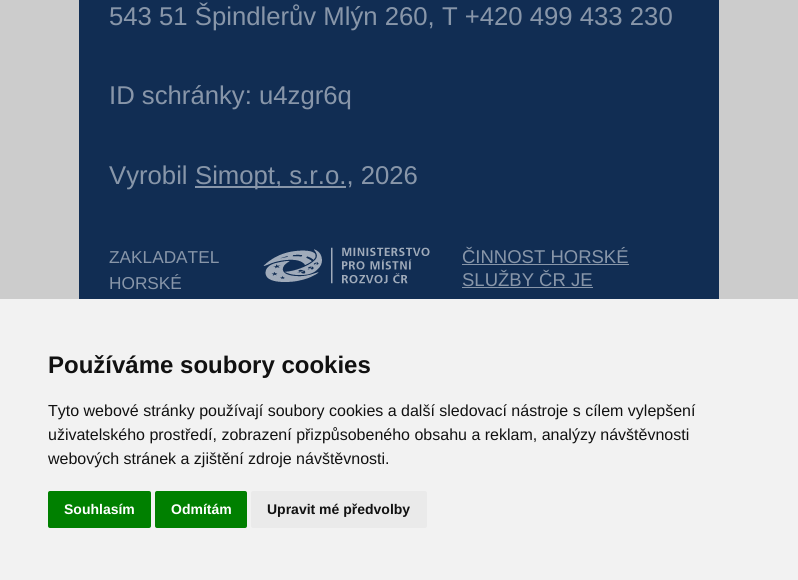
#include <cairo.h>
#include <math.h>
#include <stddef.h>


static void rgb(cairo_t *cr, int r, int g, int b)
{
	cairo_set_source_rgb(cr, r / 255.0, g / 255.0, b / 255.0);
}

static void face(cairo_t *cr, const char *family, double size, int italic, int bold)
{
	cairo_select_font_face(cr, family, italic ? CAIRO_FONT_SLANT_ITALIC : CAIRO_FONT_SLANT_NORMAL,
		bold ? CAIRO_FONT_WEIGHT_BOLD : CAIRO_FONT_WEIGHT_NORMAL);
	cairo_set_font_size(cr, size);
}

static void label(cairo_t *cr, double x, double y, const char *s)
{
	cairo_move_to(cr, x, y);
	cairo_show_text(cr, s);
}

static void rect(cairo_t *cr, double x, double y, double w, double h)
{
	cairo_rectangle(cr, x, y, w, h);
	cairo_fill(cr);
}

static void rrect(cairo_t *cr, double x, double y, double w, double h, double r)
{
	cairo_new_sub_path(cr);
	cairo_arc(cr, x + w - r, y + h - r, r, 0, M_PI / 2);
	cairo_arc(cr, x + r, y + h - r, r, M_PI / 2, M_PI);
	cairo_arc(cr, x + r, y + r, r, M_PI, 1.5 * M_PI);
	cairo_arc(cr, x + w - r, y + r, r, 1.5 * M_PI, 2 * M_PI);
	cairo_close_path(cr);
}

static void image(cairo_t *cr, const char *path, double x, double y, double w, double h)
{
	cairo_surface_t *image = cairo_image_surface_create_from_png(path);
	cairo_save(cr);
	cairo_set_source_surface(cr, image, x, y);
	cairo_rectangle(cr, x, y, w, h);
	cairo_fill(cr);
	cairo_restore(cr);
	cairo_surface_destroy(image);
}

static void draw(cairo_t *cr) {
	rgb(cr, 204, 204, 204);
	cairo_paint(cr);
	rgb(cr, 17, 45, 83);
	rect(cr, 79, 0, 640, 299);
	face(cr, "Liberation Sans", 25.7, 0, 0);
	rgb(cr, 136, 150, 169);
	label(cr, 109, 25, "543 51 Špindlerův Mlýn 260, T +420 499 433 230");
	label(cr, 109, 104, "ID schránky: u4zgr6q");
	label(cr, 109, 184, "Vyrobil");
	rect(cr, 195, 186, 151, 2);
	label(cr, 195, 184, "Simopt, s.r.o., 2026");
	face(cr, "Liberation Sans", 17.25, 0, 0);
	label(cr, 109, 263, "ZAKLADATEL");
	label(cr, 109, 289, "HORSKÉ");
	image(cr, "image0.png", 263, 247, 167, 37);
	face(cr, "Liberation Sans", 18.5, 0, 0);
	label(cr, 462, 263, "ČINNOST HORSKÉ");
	rect(cr, 462, 264, 167, 1);
	label(cr, 462, 286, "SLUŽBY ČR JE");
	rect(cr, 462, 287, 131, 1);
	rgb(cr, 242, 242, 242);
	rect(cr, 0, 299, 798, 281);
	face(cr, "Liberation Sans", 24, 0, 1);
	rgb(cr, 17, 17, 17);
	label(cr, 48, 373, "Používáme soubory cookies");
	face(cr, "Liberation Sans", 16, 0, 0);
	label(cr, 48, 416, "Tyto webové stránky používají soubory cookies a další sledovací nástroje s cílem vylepšení");
	label(cr, 48, 440, "uživatelského prostředí, zobrazení přizpůsobeného obsahu a reklam, analýzy návštěvnosti");
	label(cr, 48, 464, "webových stránek a zjištění zdroje návštěvnosti.");
	rgb(cr, 0, 128, 0);
	rrect(cr, 48, 491, 103, 37, 2);
	cairo_fill(cr);
	face(cr, "Liberation Sans", 14, 0, 1);
	rgb(cr, 255, 255, 255);
	label(cr, 64, 514, "Souhlasím");
	rgb(cr, 0, 128, 0);
	rrect(cr, 155, 491, 92, 37, 2);
	cairo_fill(cr);
	rgb(cr, 255, 255, 255);
	label(cr, 171, 514, "Odmítám");
	rgb(cr, 234, 234, 234);
	rrect(cr, 251, 491, 176, 37, 2);
	cairo_fill(cr);
	rgb(cr, 17, 17, 17);
	label(cr, 267, 514, "Upravit mé předvolby");
}

int main(void) {
	cairo_surface_t *surface = cairo_image_surface_create(CAIRO_FORMAT_RGB24, 798, 580);
	cairo_t *cr = cairo_create(surface);
	cairo_font_options_t *options = cairo_font_options_create();
	cairo_font_options_set_hint_metrics(options, CAIRO_HINT_METRICS_OFF);
	cairo_font_options_set_hint_style(options, CAIRO_HINT_STYLE_NONE);
	cairo_set_font_options(cr, options);
	cairo_set_miter_limit(cr, 4);
	draw(cr);
	cairo_surface_write_to_png(surface, "render.png");
	cairo_font_options_destroy(options);
	cairo_destroy(cr);
	cairo_surface_destroy(surface);
	return 0;
}
